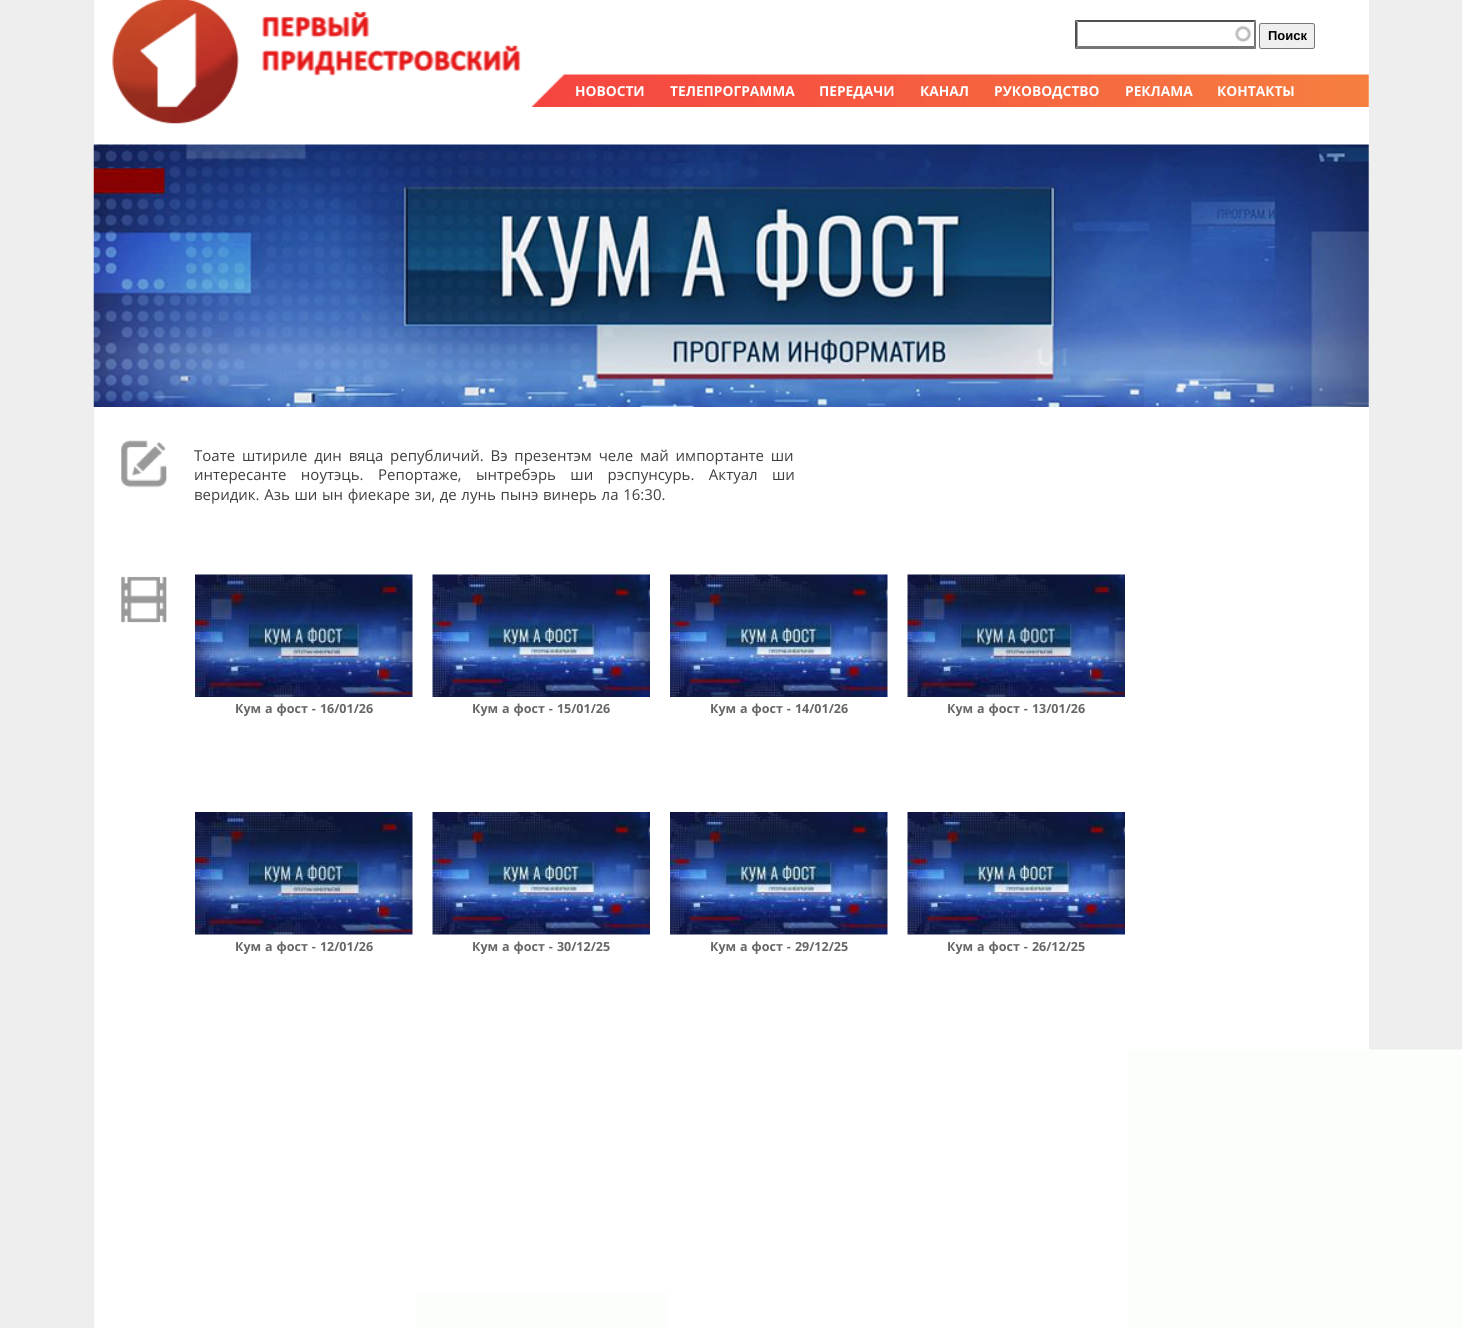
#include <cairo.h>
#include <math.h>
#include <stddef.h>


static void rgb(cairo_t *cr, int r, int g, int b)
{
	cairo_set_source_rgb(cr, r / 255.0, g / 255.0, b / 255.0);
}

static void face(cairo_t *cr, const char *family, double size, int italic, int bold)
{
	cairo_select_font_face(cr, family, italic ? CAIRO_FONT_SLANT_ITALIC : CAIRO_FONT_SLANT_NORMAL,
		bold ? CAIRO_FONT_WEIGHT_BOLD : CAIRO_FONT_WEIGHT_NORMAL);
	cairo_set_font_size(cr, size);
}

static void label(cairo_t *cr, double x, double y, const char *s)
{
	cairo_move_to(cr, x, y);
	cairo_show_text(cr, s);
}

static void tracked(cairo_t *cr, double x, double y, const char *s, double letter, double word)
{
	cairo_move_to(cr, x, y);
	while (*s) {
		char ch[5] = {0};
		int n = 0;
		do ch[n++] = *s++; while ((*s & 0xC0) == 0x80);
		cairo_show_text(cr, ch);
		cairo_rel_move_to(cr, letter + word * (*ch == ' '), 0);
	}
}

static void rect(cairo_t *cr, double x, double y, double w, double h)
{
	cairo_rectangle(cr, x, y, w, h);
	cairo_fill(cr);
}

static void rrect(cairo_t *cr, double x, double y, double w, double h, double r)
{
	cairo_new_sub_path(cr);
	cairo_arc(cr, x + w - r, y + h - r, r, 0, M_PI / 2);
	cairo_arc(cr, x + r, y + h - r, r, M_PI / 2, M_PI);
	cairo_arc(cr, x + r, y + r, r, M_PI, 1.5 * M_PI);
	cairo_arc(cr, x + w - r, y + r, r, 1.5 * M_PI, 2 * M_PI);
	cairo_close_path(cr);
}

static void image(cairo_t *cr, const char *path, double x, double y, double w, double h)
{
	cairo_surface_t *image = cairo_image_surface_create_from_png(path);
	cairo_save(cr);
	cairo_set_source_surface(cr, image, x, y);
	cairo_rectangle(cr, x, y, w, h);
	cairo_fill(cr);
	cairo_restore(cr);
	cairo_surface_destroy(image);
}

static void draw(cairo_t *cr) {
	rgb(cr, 238, 238, 238);
	cairo_paint(cr);
	rgb(cr, 255, 255, 255);
	rect(cr, 94, 0, 1275, 1328);
	image(cr, "image0.png", 531, 74, 838, 33);
	image(cr, "image1.png", 112, 0, 409, 124);
	image(cr, "image2.png", 1235, 25, 17, 17);
	rgb(cr, 79, 79, 79);
	cairo_new_path(cr);
	cairo_move_to(cr, 1075, 20);
	cairo_line_to(cr, 1256, 20);
	cairo_line_to(cr, 1254, 22);
	cairo_line_to(cr, 1078, 22);
	cairo_close_path(cr);
	cairo_fill(cr);
	rgb(cr, 118, 118, 118);
	cairo_new_path(cr);
	cairo_move_to(cr, 1256, 20);
	cairo_line_to(cr, 1256, 49);
	cairo_line_to(cr, 1254, 46);
	cairo_line_to(cr, 1254, 22.5);
	cairo_close_path(cr);
	cairo_fill(cr);
	cairo_new_path(cr);
	cairo_move_to(cr, 1256, 49);
	cairo_line_to(cr, 1075, 49);
	cairo_line_to(cr, 1078, 46);
	cairo_line_to(cr, 1254, 46);
	cairo_close_path(cr);
	cairo_fill(cr);
	rgb(cr, 79, 79, 79);
	cairo_new_path(cr);
	cairo_move_to(cr, 1075, 49);
	cairo_line_to(cr, 1075, 20);
	cairo_line_to(cr, 1077.5, 22.5);
	cairo_line_to(cr, 1077.5, 46);
	cairo_close_path(cr);
	cairo_fill(cr);
	rgb(cr, 239, 239, 239);
	rrect(cr, 1259.5, 23.5, 55, 25, 2);
	cairo_fill_preserve(cr);
	rgb(cr, 118, 118, 118);
	cairo_set_line_width(cr, 1);
	cairo_stroke(cr);
	face(cr, "Liberation Sans", 13, 0, 1);
	rgb(cr, 0, 0, 0);
	label(cr, 1268, 40, "Поиск");
	face(cr, "Open Sans", 13.75, 0, 1);
	rgb(cr, 255, 255, 255);
	label(cr, 575, 96, "НОВОСТИ");
	label(cr, 670, 96, "ТЕЛЕПРОГРАММА");
	label(cr, 819, 96, "ПЕРЕДАЧИ");
	label(cr, 920, 96, "КАНАЛ");
	label(cr, 994, 96, "РУКОВОДСТВО");
	label(cr, 1125, 96, "РЕКЛАМА");
	label(cr, 1217, 96, "КОНТАКТЫ");
	image(cr, "image3.png", 93, 144, 1276, 263);
	image(cr, "image4.png", 121, 440, 47, 48);
	face(cr, "Open Sans", 15, 0, 0);
	rgb(cr, 63, 63, 63);
	tracked(cr, 194, 461, "Тоате штириле дин вяца републичий. Вэ презентэм челе май импортанте ши", 0, 2.9);
	tracked(cr, 194, 480, "интересанте ноутэць. Репортаже, ынтребэрь ши рэспунсурь. Актуал ши", 0, 10.5);
	tracked(cr, 194, 500, "веридик. Азь ши ын фиекаре зи, де лунь пынэ винерь ла 16:30.", 0, 0.75);
	image(cr, "image5.png", 121, 576, 46, 47);
	image(cr, "image6.png", 195, 574, 218, 123);
	face(cr, "Open Sans", 12.5, 0, 1);
	rgb(cr, 102, 102, 102);
	tracked(cr, 235, 713, "Кум а фост - 16/01/26", 0, 0.75);
	image(cr, "image7.png", 432, 574, 218, 123);
	tracked(cr, 472, 713, "Кум а фост - 15/01/26", 0, 0.75);
	image(cr, "image8.png", 670, 574, 218, 123);
	tracked(cr, 710, 713, "Кум а фост - 14/01/26", 0, 0.75);
	image(cr, "image9.png", 907, 574, 218, 123);
	tracked(cr, 947, 713, "Кум а фост - 13/01/26", 0, 0.75);
	image(cr, "image10.png", 195, 812, 218, 123);
	tracked(cr, 235, 951, "Кум а фост - 12/01/26", 0, 0.75);
	image(cr, "image11.png", 432, 812, 218, 123);
	tracked(cr, 472, 951, "Кум а фост - 30/12/25", 0, 0.75);
	image(cr, "image12.png", 670, 812, 218, 123);
	tracked(cr, 710, 951, "Кум а фост - 29/12/25", 0, 0.75);
	image(cr, "image13.png", 907, 812, 218, 123);
	tracked(cr, 947, 951, "Кум а фост - 26/12/25", 0, 0.75);
	image(cr, "image14.png", 416, 1294, 13, 29);
	image(cr, "image15.png", 428, 1294, 241, 33);
	image(cr, "image16.png", 1128, 1049, 334, 279);
	rgb(cr, 252, 254, 252);
	rect(cr, 416, 1323, 251, 5);
	image(cr, "image17.png", 667, 1327, 2, 1);
	rect(cr, 1128, 1294, 59, 34);
}

int main(void) {
	cairo_surface_t *surface = cairo_image_surface_create(CAIRO_FORMAT_RGB24, 1462, 1328);
	cairo_t *cr = cairo_create(surface);
	cairo_font_options_t *options = cairo_font_options_create();
	cairo_font_options_set_hint_metrics(options, CAIRO_HINT_METRICS_OFF);
	cairo_font_options_set_hint_style(options, CAIRO_HINT_STYLE_NONE);
	cairo_set_font_options(cr, options);
	cairo_set_miter_limit(cr, 4);
	draw(cr);
	cairo_surface_write_to_png(surface, "render.png");
	cairo_font_options_destroy(options);
	cairo_destroy(cr);
	cairo_surface_destroy(surface);
	return 0;
}
